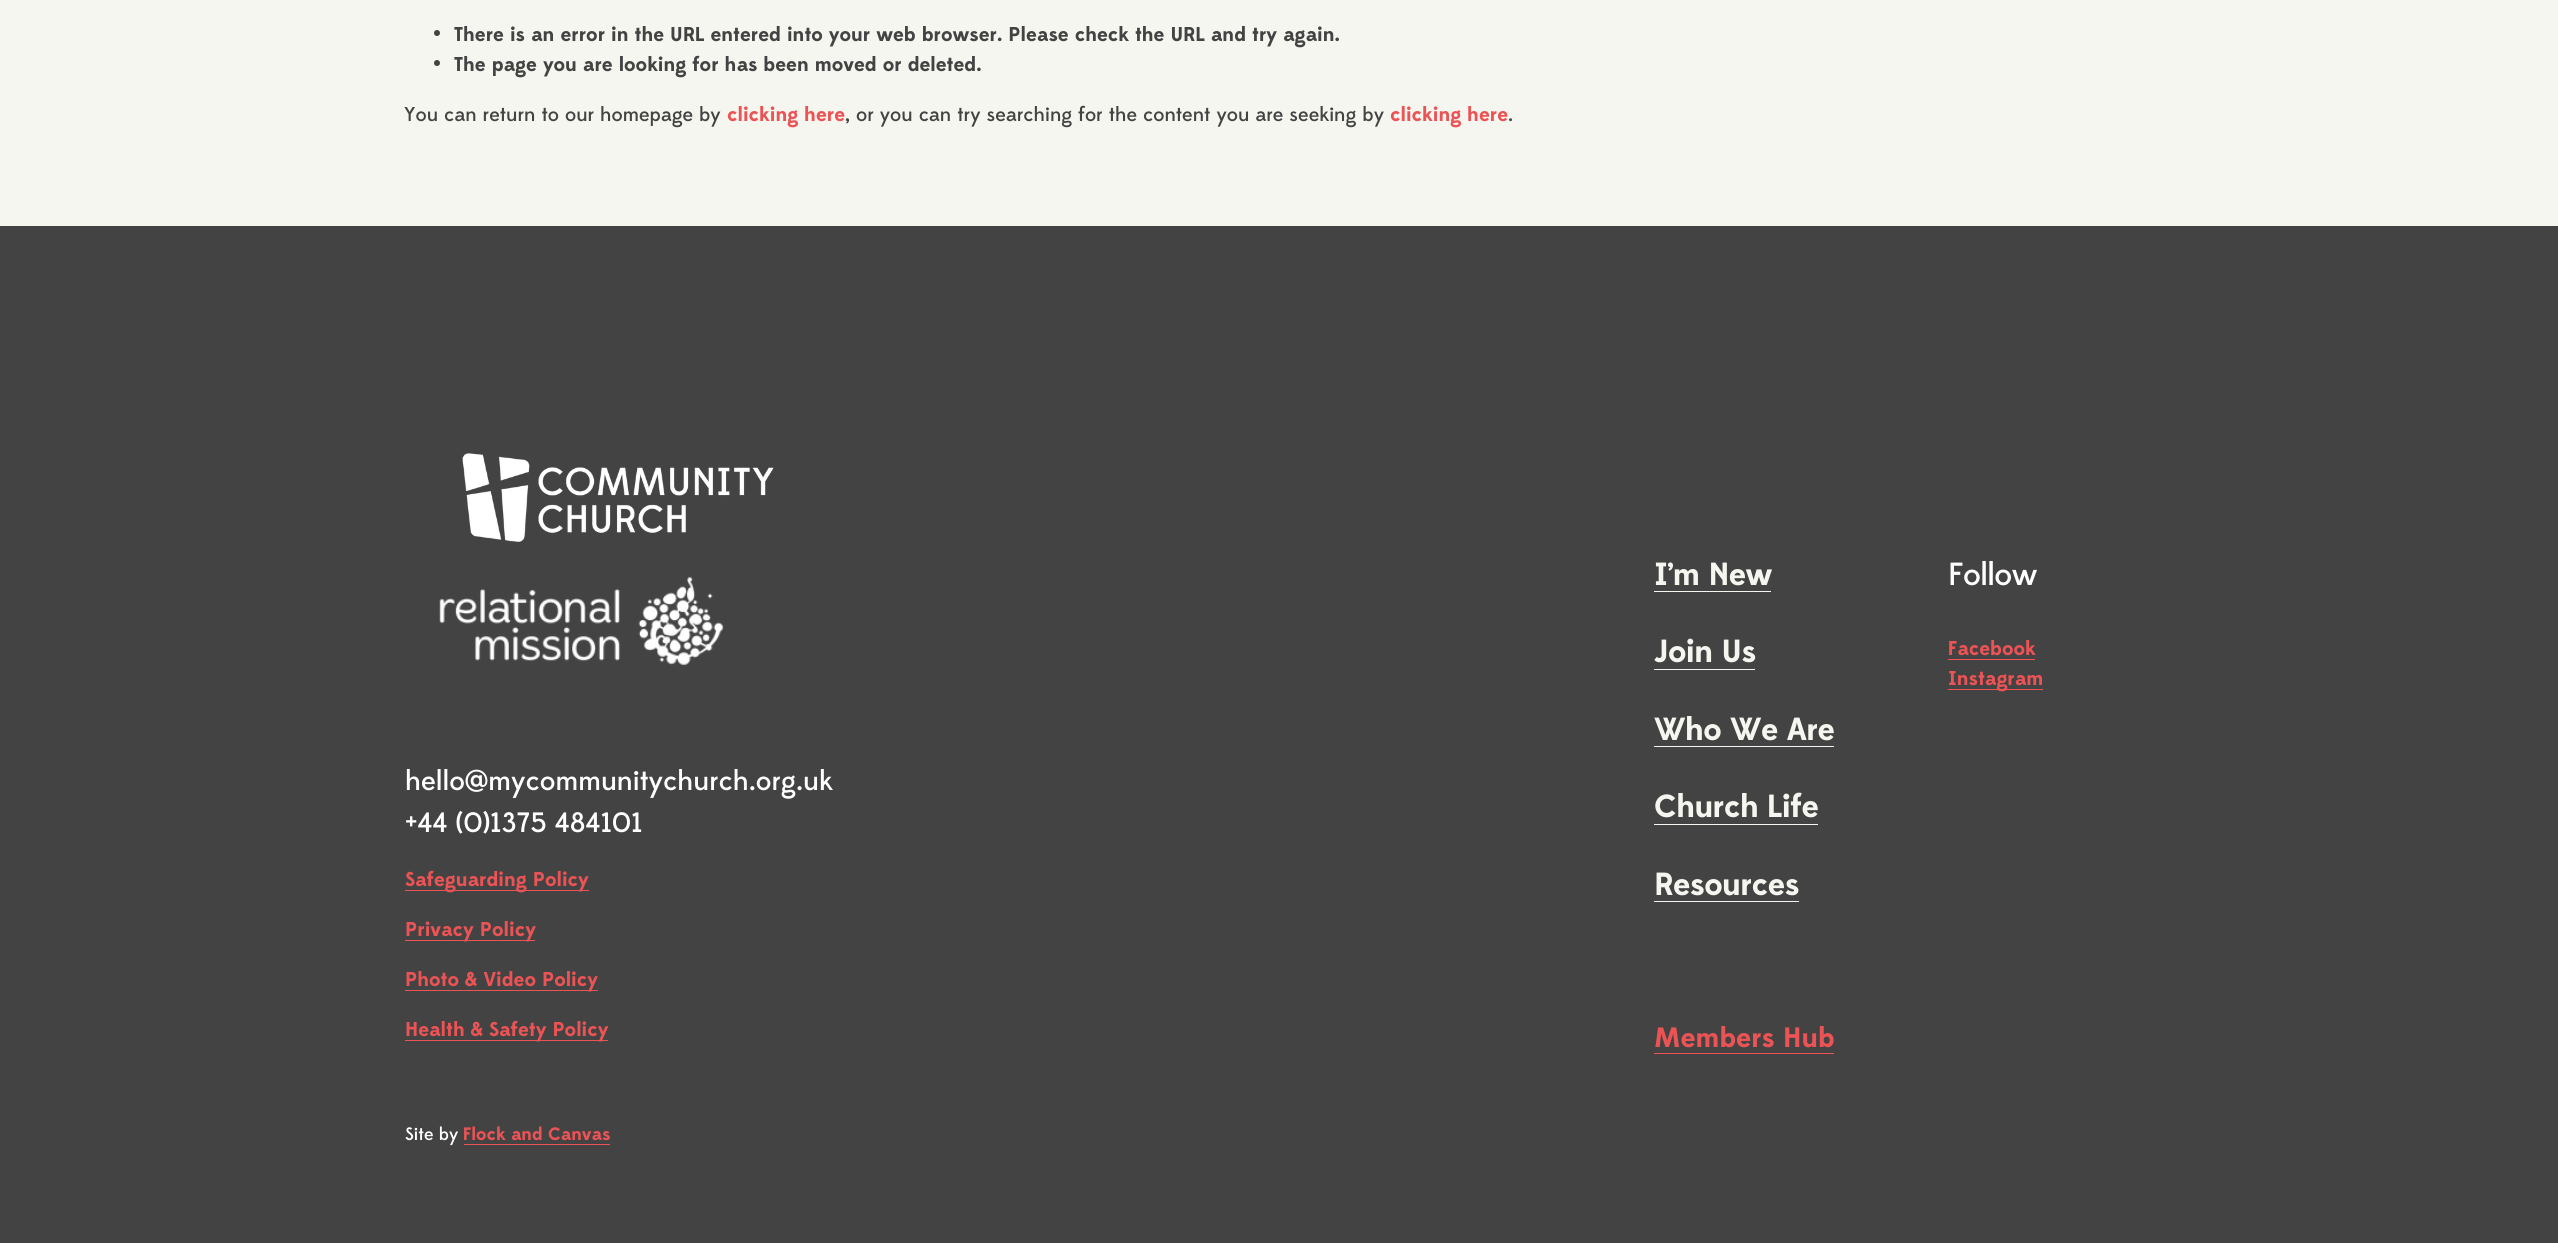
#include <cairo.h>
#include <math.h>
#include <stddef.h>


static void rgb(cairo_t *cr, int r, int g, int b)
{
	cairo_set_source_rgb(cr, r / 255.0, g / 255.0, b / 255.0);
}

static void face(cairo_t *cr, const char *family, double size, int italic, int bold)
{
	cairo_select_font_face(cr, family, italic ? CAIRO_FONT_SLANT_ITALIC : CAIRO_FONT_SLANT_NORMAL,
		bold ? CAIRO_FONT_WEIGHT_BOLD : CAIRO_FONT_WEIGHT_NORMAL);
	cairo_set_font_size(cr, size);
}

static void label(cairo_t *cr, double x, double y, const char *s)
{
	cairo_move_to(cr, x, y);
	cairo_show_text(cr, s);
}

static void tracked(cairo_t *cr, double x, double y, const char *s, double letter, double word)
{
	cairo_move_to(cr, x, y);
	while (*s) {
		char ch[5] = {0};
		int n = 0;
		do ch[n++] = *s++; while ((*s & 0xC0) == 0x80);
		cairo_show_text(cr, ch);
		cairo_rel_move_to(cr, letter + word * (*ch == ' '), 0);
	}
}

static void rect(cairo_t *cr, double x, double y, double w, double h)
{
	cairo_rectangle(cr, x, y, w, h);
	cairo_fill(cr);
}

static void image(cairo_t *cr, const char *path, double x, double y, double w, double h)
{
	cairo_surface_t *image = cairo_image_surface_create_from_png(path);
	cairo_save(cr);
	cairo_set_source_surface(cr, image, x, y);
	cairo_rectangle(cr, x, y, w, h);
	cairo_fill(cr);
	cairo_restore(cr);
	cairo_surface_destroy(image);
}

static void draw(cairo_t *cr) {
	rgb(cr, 246, 246, 240);
	cairo_paint(cr);
	rgb(cr, 67, 67, 67);
	cairo_arc(cr, 437, 33, 3, 0, 2 * M_PI);
	cairo_fill(cr);
	face(cr, "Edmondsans", 20, 0, 1);
	label(cr, 454, 41, "There is an error in the URL entered into your web browser. Please check the URL and try again.");
	cairo_new_path(cr);
	cairo_arc(cr, 437, 63, 3, 0, 2 * M_PI);
	cairo_fill(cr);
	label(cr, 454, 71, "The page you are looking for has been moved or deleted.");
	face(cr, "Edmondsans Medium", 20, 0, 0);
	label(cr, 404, 121, "You can return to our homepage by");
	face(cr, "Edmondsans", 20, 0, 1);
	rgb(cr, 235, 83, 85);
	label(cr, 727, 121, "clicking here");
	face(cr, "Edmondsans Medium", 20, 0, 0);
	rgb(cr, 67, 67, 67);
	label(cr, 845, 121, ", or you can try searching for the content you are seeking by");
	face(cr, "Edmondsans", 20, 0, 1);
	rgb(cr, 235, 83, 85);
	label(cr, 1390, 121, "clicking here");
	face(cr, "Edmondsans Medium", 20, 0, 0);
	rgb(cr, 67, 67, 67);
	label(cr, 1508, 121, ".");
	rect(cr, 0, 226, 2558, 1017);
	image(cr, "image0.png", 462, 453, 312, 89);
	image(cr, "image1.png", 439, 576, 285, 90);
	face(cr, "Edmondsans", 32, 0, 1);
	rgb(cr, 246, 246, 240);
	tracked(cr, 1654, 585, "I’m New", -0.6, 0);
	rect(cr, 1654, 591, 117, 1);
	tracked(cr, 1654, 662, "Join Us", -0.6, 0);
	rect(cr, 1654, 669, 101, 1);
	tracked(cr, 1654, 740, "Who We Are", -0.6, 0);
	rect(cr, 1654, 746, 180, 1);
	tracked(cr, 1654, 817, "Church Life", -0.6, 0);
	rect(cr, 1654, 824, 164, 1);
	tracked(cr, 1654, 895, "Resources", -0.6, 0);
	rect(cr, 1654, 901, 145, 1);
	face(cr, "Edmondsans Medium", 32, 0, 0);
	rgb(cr, 255, 255, 255);
	tracked(cr, 1948, 585, "Follow", -0.6, 0);
	face(cr, "Edmondsans", 20, 0, 1);
	rgb(cr, 235, 83, 85);
	label(cr, 1948, 655, "Facebook");
	rect(cr, 1948, 659, 87, 1);
	rect(cr, 1948, 689, 95, 1);
	label(cr, 1948, 685, "Instagram");
	face(cr, "Edmondsans Medium", 28, 0, 0);
	rgb(cr, 255, 255, 255);
	label(cr, 405, 790, "hello@mycommunitychurch.org.uk");
	label(cr, 405, 832, "+44 (0)1375 484101");
	rgb(cr, 235, 83, 85);
	rect(cr, 405, 890, 184, 1);
	face(cr, "Edmondsans", 20, 0, 1);
	label(cr, 405, 886, "Safeguarding Policy");
	rect(cr, 405, 940, 130, 1);
	label(cr, 405, 936, "Privacy Policy");
	rect(cr, 405, 990, 193, 1);
	label(cr, 405, 986, "Photo & Video Policy");
	rect(cr, 405, 1040, 203, 1);
	label(cr, 405, 1036, "Health & Safety Policy");
	face(cr, "Edmondsans", 28, 0, 1);
	label(cr, 1654, 1047, "Members Hub");
	rect(cr, 1654, 1053, 180, 1);
	face(cr, "Edmondsans Medium", 18, 0, 0);
	rgb(cr, 255, 255, 255);
	label(cr, 405, 1140, "Site by");
	face(cr, "Edmondsans", 18, 0, 1);
	rgb(cr, 235, 83, 85);
	label(cr, 463, 1140, "Flock and Canvas");
	rect(cr, 464, 1144, 146, 1);
}

int main(void) {
	cairo_surface_t *surface = cairo_image_surface_create(CAIRO_FORMAT_RGB24, 2558, 1243);
	cairo_t *cr = cairo_create(surface);
	cairo_font_options_t *options = cairo_font_options_create();
	cairo_font_options_set_hint_metrics(options, CAIRO_HINT_METRICS_OFF);
	cairo_font_options_set_hint_style(options, CAIRO_HINT_STYLE_NONE);
	cairo_set_font_options(cr, options);
	cairo_set_miter_limit(cr, 4);
	draw(cr);
	cairo_surface_write_to_png(surface, "render.png");
	cairo_font_options_destroy(options);
	cairo_destroy(cr);
	cairo_surface_destroy(surface);
	return 0;
}
